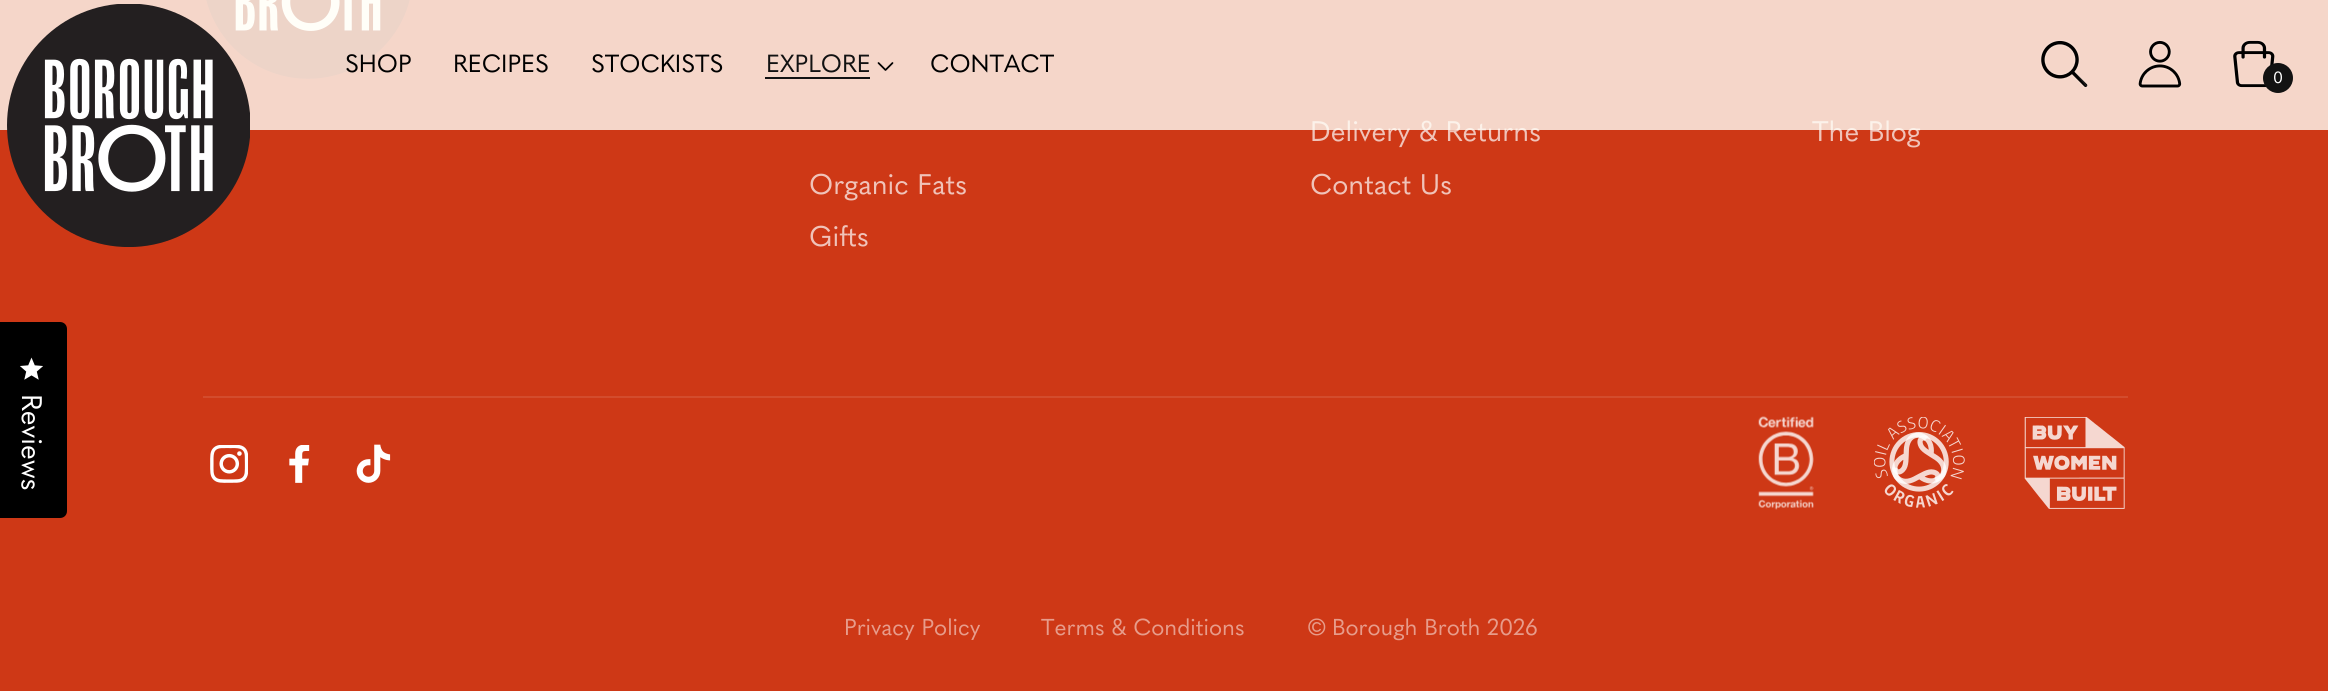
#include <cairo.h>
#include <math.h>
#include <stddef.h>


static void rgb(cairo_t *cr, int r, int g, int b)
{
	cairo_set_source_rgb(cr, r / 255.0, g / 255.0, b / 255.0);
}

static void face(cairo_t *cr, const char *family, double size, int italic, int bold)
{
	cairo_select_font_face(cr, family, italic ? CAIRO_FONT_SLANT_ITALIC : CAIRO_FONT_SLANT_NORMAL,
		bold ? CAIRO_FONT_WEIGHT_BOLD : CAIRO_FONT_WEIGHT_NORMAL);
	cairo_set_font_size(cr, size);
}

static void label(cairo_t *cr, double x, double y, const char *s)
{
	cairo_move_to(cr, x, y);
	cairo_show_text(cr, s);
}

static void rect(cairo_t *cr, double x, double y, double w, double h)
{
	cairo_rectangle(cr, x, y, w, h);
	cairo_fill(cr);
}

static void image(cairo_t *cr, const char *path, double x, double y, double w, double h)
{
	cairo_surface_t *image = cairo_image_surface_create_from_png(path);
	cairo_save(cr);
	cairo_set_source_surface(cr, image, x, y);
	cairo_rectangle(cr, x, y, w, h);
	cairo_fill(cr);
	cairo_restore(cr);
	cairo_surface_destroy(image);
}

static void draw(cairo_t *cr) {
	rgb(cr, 206, 56, 22);
	cairo_paint(cr);
	image(cr, "image6.png", 206, 0, 204, 79);
	face(cr, "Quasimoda", 28, 0, 0);
	rgb(cr, 240, 195, 185);
	label(cr, 1310, 141, "Delivery & Returns");
	label(cr, 1812, 141, "The Blog");
	cairo_set_source_rgba(cr, 1, 0.992, 0.965, 0.8);
	rect(cr, 0, 0, 2328, 130);
	image(cr, "image0.png", 7, 4, 243, 243);
	face(cr, "Quasimoda", 24.5, 0, 0);
	rgb(cr, 0, 0, 0);
	label(cr, 345, 72, "SHOP");
	label(cr, 453, 72, "RECIPES");
	label(cr, 591, 72, "STOCKISTS");
	rgb(cr, 18, 18, 18);
	label(cr, 766, 72, "EXPLORE");
	rect(cr, 765, 77, 105, 2);
	image(cr, "image1.png", 877, 62, 17, 9);
	rgb(cr, 0, 0, 0);
	label(cr, 930, 72, "CONTACT");
	image(cr, "image2.png", 2040, 40, 48, 48);
	image(cr, "image3.png", 2138, 40, 44, 49);
	image(cr, "image4.png", 2232, 40, 43, 48);
	rgb(cr, 18, 18, 18);
	cairo_arc(cr, 2278, 78, 15, 0, 2 * M_PI);
	cairo_fill(cr);
	face(cr, "Quasimoda", 16, 0, 0);
	rgb(cr, 255, 255, 255);
	label(cr, 2273, 83, "0");
	rgb(cr, 0, 0, 0);
	cairo_new_path(cr);
	cairo_move_to(cr, -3, 322);
	cairo_line_to(cr, 60, 322);
	cairo_curve_to(cr, 64, 322, 67, 325, 67, 329);
	cairo_line_to(cr, 67, 511);
	cairo_curve_to(cr, 67, 515, 64, 518, 60, 518);
	cairo_line_to(cr, -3, 518);
	cairo_close_path(cr);
	cairo_fill(cr);
	image(cr, "image5.png", 20, 357, 23, 23);
	face(cr, "Quasimoda", 28, 0, 0);
	rgb(cr, 255, 255, 255);
	cairo_save(cr);
	cairo_translate(cr, 22, 394);
	cairo_rotate(cr, 90.1 * M_PI / 180);
	label(cr, 0, 0, "Reviews");
	cairo_restore(cr);
	rgb(cr, 240, 195, 185);
	label(cr, 1310, 194, "Contact Us");
	label(cr, 809, 194, "Organic Fats");
	label(cr, 809, 246, "Gifts");
	rgb(cr, 211, 76, 45);
	rect(cr, 203, 396, 1925, 2);
	image(cr, "image7.png", 210, 445, 38, 38);
	image(cr, "image8.png", 289, 445, 21, 38);
	image(cr, "image9.png", 356, 444, 35, 39);
	image(cr, "image10.png", 1758, 416, 56, 94);
	image(cr, "image11.png", 1874, 417, 91, 91);
	image(cr, "image12.png", 2024, 417, 101, 92);
	face(cr, "Quasimoda", 22.75, 0, 0);
	rgb(cr, 231, 156, 139);
	label(cr, 844, 635, "Privacy Policy");
	label(cr, 1041, 635, "Terms & Conditions");
	label(cr, 1306, 635, "© Borough Broth 2026");
}

int main(void) {
	cairo_surface_t *surface = cairo_image_surface_create(CAIRO_FORMAT_RGB24, 2328, 691);
	cairo_t *cr = cairo_create(surface);
	cairo_font_options_t *options = cairo_font_options_create();
	cairo_font_options_set_hint_metrics(options, CAIRO_HINT_METRICS_OFF);
	cairo_font_options_set_hint_style(options, CAIRO_HINT_STYLE_NONE);
	cairo_set_font_options(cr, options);
	cairo_set_miter_limit(cr, 4);
	draw(cr);
	cairo_surface_write_to_png(surface, "render.png");
	cairo_font_options_destroy(options);
	cairo_destroy(cr);
	cairo_surface_destroy(surface);
	return 0;
}
